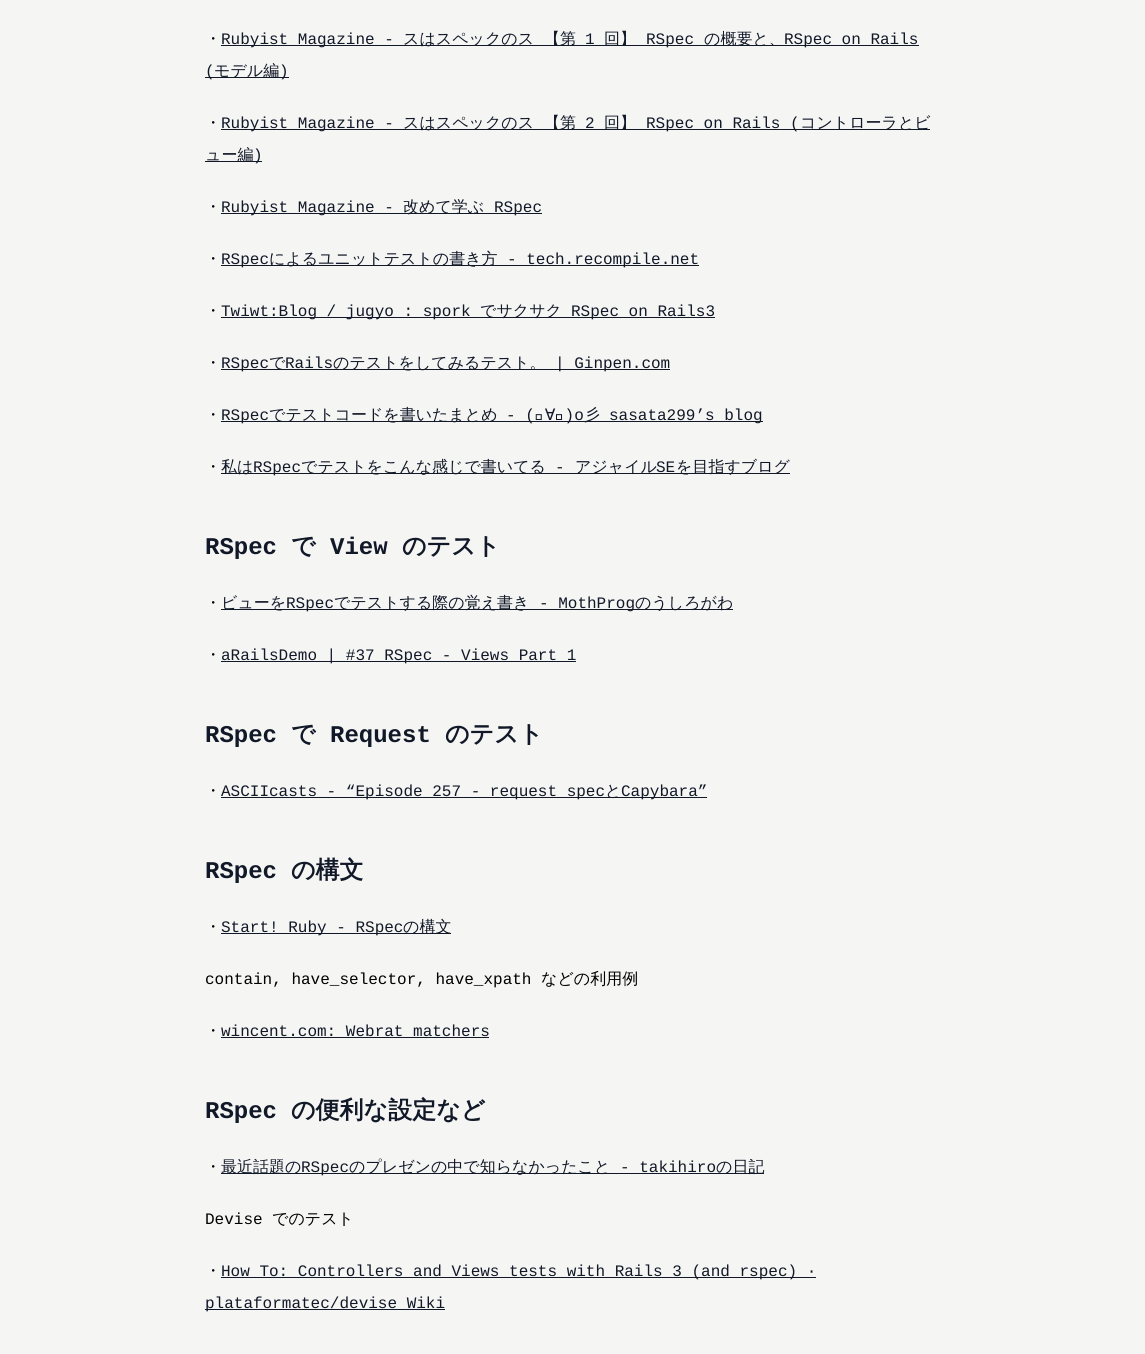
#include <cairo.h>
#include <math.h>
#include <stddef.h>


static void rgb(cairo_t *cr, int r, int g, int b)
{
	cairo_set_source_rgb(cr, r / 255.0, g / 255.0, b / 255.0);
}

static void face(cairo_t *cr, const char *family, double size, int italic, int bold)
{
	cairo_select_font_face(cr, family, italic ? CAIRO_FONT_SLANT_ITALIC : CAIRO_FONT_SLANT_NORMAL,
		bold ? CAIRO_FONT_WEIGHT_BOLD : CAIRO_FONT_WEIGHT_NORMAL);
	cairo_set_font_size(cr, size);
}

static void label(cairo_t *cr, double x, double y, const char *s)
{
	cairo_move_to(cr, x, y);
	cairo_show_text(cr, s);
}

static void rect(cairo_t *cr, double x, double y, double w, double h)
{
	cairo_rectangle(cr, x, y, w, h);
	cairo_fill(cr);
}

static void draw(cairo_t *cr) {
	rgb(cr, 245, 245, 244);
	cairo_paint(cr);
	face(cr, "WenQuanYi Zen Hei Medium", 16, 0, 0);
	rgb(cr, 0, 0, 0);
	label(cr, 205, 44, "・");
	rgb(cr, 17, 24, 39);
	rect(cr, 221, 45, 698, 1);
	face(cr, "Liberation Mono", 16, 0, 0);
	label(cr, 221, 44, "Rubyist Magazine -");
	face(cr, "WenQuanYi Zen Hei Medium", 16, 0, 0);
	label(cr, 403, 44, "スはスペックのス");
	label(cr, 544, 44, "【第");
	face(cr, "Liberation Mono", 16, 0, 0);
	label(cr, 585, 44, "1");
	face(cr, "WenQuanYi Zen Hei Medium", 16, 0, 0);
	label(cr, 604, 44, "回】");
	face(cr, "Liberation Mono", 16, 0, 0);
	label(cr, 646, 44, "RSpec");
	face(cr, "WenQuanYi Zen Hei Medium", 16, 0, 0);
	label(cr, 704, 44, "の概要と、");
	face(cr, "Liberation Mono", 16, 0, 0);
	label(cr, 784, 44, "RSpec on Rails");
	rect(cr, 205, 77, 84, 1);
	label(cr, 205, 76, "(");
	face(cr, "WenQuanYi Zen Hei Medium", 16, 0, 0);
	label(cr, 214, 76, "モデル編");
	face(cr, "Liberation Mono", 16, 0, 0);
	label(cr, 279, 76, ")");
	face(cr, "WenQuanYi Zen Hei Medium", 16, 0, 0);
	rgb(cr, 0, 0, 0);
	label(cr, 205, 128, "・");
	rgb(cr, 17, 24, 39);
	rect(cr, 221, 129, 709, 1);
	face(cr, "Liberation Mono", 16, 0, 0);
	label(cr, 221, 128, "Rubyist Magazine -");
	face(cr, "WenQuanYi Zen Hei Medium", 16, 0, 0);
	label(cr, 403, 128, "スはスペックのス");
	label(cr, 544, 128, "【第");
	face(cr, "Liberation Mono", 16, 0, 0);
	label(cr, 585, 128, "2");
	face(cr, "WenQuanYi Zen Hei Medium", 16, 0, 0);
	label(cr, 604, 128, "回】");
	face(cr, "Liberation Mono", 16, 0, 0);
	label(cr, 646, 128, "RSpec on Rails (");
	face(cr, "WenQuanYi Zen Hei Medium", 16, 0, 0);
	label(cr, 800, 128, "コントローラとビ");
	rect(cr, 205, 161, 57, 1);
	label(cr, 205, 160, "ュー編");
	face(cr, "Liberation Mono", 16, 0, 0);
	label(cr, 253, 160, ")");
	face(cr, "WenQuanYi Zen Hei Medium", 16, 0, 0);
	rgb(cr, 0, 0, 0);
	label(cr, 205, 212, "・");
	rgb(cr, 17, 24, 39);
	rect(cr, 221, 213, 321, 1);
	face(cr, "Liberation Mono", 16, 0, 0);
	label(cr, 221, 212, "Rubyist Magazine -");
	face(cr, "WenQuanYi Zen Hei Medium", 16, 0, 0);
	label(cr, 403, 212, "改めて学ぶ");
	face(cr, "Liberation Mono", 16, 0, 0);
	label(cr, 494, 212, "RSpec");
	face(cr, "WenQuanYi Zen Hei Medium", 16, 0, 0);
	rgb(cr, 0, 0, 0);
	label(cr, 205, 264, "・");
	rgb(cr, 17, 24, 39);
	rect(cr, 221, 265, 478, 1);
	face(cr, "Liberation Mono", 16, 0, 0);
	label(cr, 221, 264, "RSpec");
	face(cr, "WenQuanYi Zen Hei Medium", 16, 0, 0);
	label(cr, 269, 264, "によるユニットテストの書き方");
	face(cr, "Liberation Mono", 16, 0, 0);
	label(cr, 507, 264, "- tech.recompile.net");
	face(cr, "WenQuanYi Zen Hei Medium", 16, 0, 0);
	rgb(cr, 0, 0, 0);
	label(cr, 205, 316, "・");
	rgb(cr, 17, 24, 39);
	rect(cr, 221, 317, 494, 1);
	face(cr, "Liberation Mono", 16, 0, 0);
	label(cr, 221, 316, "Twiwt:Blog / jugyo : spork");
	face(cr, "WenQuanYi Zen Hei Medium", 16, 0, 0);
	label(cr, 480, 316, "でサクサク");
	face(cr, "Liberation Mono", 16, 0, 0);
	label(cr, 571, 316, "RSpec on Rails3");
	face(cr, "WenQuanYi Zen Hei Medium", 16, 0, 0);
	rgb(cr, 0, 0, 0);
	label(cr, 205, 368, "・");
	rgb(cr, 17, 24, 39);
	rect(cr, 221, 369, 449, 1);
	face(cr, "Liberation Mono", 16, 0, 0);
	label(cr, 221, 368, "RSpec");
	face(cr, "WenQuanYi Zen Hei Medium", 16, 0, 0);
	label(cr, 269, 368, "で");
	face(cr, "Liberation Mono", 16, 0, 0);
	label(cr, 285, 368, "Rails");
	face(cr, "WenQuanYi Zen Hei Medium", 16, 0, 0);
	label(cr, 333, 368, "のテストをしてみるテスト。");
	face(cr, "Liberation Mono", 16, 0, 0);
	label(cr, 555, 368, "| Ginpen.com");
	face(cr, "WenQuanYi Zen Hei Medium", 16, 0, 0);
	rgb(cr, 0, 0, 0);
	label(cr, 205, 420, "・");
	rgb(cr, 17, 24, 39);
	rect(cr, 221, 421, 542, 1);
	face(cr, "Liberation Mono", 16, 0, 0);
	label(cr, 221, 420, "RSpec");
	face(cr, "WenQuanYi Zen Hei Medium", 16, 0, 0);
	label(cr, 269, 420, "でテストコードを書いたまとめ");
	face(cr, "Liberation Mono", 16, 0, 0);
	label(cr, 506, 420, "- (ﾟ");
	face(cr, "WenQuanYi Zen Hei Medium", 16, 0, 0);
	label(cr, 545, 420, "∀");
	face(cr, "Liberation Mono", 16, 0, 0);
	label(cr, 555, 420, "ﾟ)o");
	face(cr, "WenQuanYi Zen Hei Medium", 16, 0, 0);
	label(cr, 584, 420, "彡");
	face(cr, "Liberation Mono", 16, 0, 0);
	label(cr, 609, 420, "sasata299’s blog");
	face(cr, "WenQuanYi Zen Hei Medium", 16, 0, 0);
	rgb(cr, 0, 0, 0);
	label(cr, 205, 472, "・");
	rgb(cr, 17, 24, 39);
	rect(cr, 221, 473, 569, 1);
	label(cr, 221, 472, "私は");
	face(cr, "Liberation Mono", 16, 0, 0);
	label(cr, 253, 472, "RSpec");
	face(cr, "WenQuanYi Zen Hei Medium", 16, 0, 0);
	label(cr, 301, 472, "でテストをこんな感じで書いてる");
	face(cr, "Liberation Mono", 16, 0, 0);
	label(cr, 555, 472, "-");
	face(cr, "WenQuanYi Zen Hei Medium", 16, 0, 0);
	label(cr, 575, 472, "アジャイル");
	face(cr, "Liberation Mono", 16, 0, 0);
	label(cr, 656, 472, "SE");
	face(cr, "WenQuanYi Zen Hei Medium", 16, 0, 0);
	label(cr, 676, 472, "を目指すブログ");
	face(cr, "Liberation Mono", 24, 0, 1);
	label(cr, 205, 554, "RSpec");
	face(cr, "WenQuanYi Zen Hei", 24, 0, 1);
	label(cr, 291, 554, "で");
	face(cr, "Liberation Mono", 24, 0, 1);
	label(cr, 330, 554, "View");
	face(cr, "WenQuanYi Zen Hei", 24, 0, 1);
	label(cr, 402, 554, "のテスト");
	face(cr, "WenQuanYi Zen Hei Medium", 16, 0, 0);
	rgb(cr, 0, 0, 0);
	label(cr, 205, 608, "・");
	rgb(cr, 17, 24, 39);
	rect(cr, 221, 609, 512, 1);
	label(cr, 221, 608, "ビューを");
	face(cr, "Liberation Mono", 16, 0, 0);
	label(cr, 286, 608, "RSpec");
	face(cr, "WenQuanYi Zen Hei Medium", 16, 0, 0);
	label(cr, 334, 608, "でテストする際の覚え書き");
	face(cr, "Liberation Mono", 16, 0, 0);
	label(cr, 539, 608, "- MothProg");
	face(cr, "WenQuanYi Zen Hei Medium", 16, 0, 0);
	label(cr, 635, 608, "のうしろがわ");
	rgb(cr, 0, 0, 0);
	label(cr, 205, 660, "・");
	rgb(cr, 17, 24, 39);
	rect(cr, 221, 661, 355, 1);
	face(cr, "Liberation Mono", 16, 0, 0);
	label(cr, 221, 660, "aRailsDemo | #37 RSpec - Views Part 1");
	face(cr, "Liberation Mono", 24, 0, 1);
	label(cr, 205, 742, "RSpec");
	face(cr, "WenQuanYi Zen Hei", 24, 0, 1);
	label(cr, 291, 742, "で");
	face(cr, "Liberation Mono", 24, 0, 1);
	label(cr, 330, 742, "Request");
	face(cr, "WenQuanYi Zen Hei", 24, 0, 1);
	label(cr, 445, 742, "のテスト");
	face(cr, "WenQuanYi Zen Hei Medium", 16, 0, 0);
	rgb(cr, 0, 0, 0);
	label(cr, 205, 796, "・");
	rgb(cr, 17, 24, 39);
	rect(cr, 221, 797, 486, 1);
	face(cr, "Liberation Mono", 16, 0, 0);
	label(cr, 221, 796, "ASCIIcasts - “Episode 257 - request spec");
	face(cr, "WenQuanYi Zen Hei Medium", 16, 0, 0);
	label(cr, 605, 796, "と");
	face(cr, "Liberation Mono", 16, 0, 0);
	label(cr, 621, 796, "Capybara”");
	face(cr, "Liberation Mono", 24, 0, 1);
	label(cr, 205, 878, "RSpec");
	face(cr, "WenQuanYi Zen Hei", 24, 0, 1);
	label(cr, 291, 878, "の構文");
	face(cr, "WenQuanYi Zen Hei Medium", 16, 0, 0);
	rgb(cr, 0, 0, 0);
	label(cr, 205, 932, "・");
	rgb(cr, 17, 24, 39);
	rect(cr, 221, 933, 230, 1);
	face(cr, "Liberation Mono", 16, 0, 0);
	label(cr, 221, 932, "Start! Ruby - RSpec");
	face(cr, "WenQuanYi Zen Hei Medium", 16, 0, 0);
	label(cr, 403, 932, "の構文");
	face(cr, "Liberation Mono", 16, 0, 0);
	rgb(cr, 0, 0, 0);
	label(cr, 205, 984, "contain, have_selector, have_xpath");
	face(cr, "WenQuanYi Zen Hei Medium", 16, 0, 0);
	label(cr, 541, 984, "などの利用例");
	label(cr, 205, 1036, "・");
	face(cr, "Liberation Mono", 16, 0, 0);
	rgb(cr, 17, 24, 39);
	label(cr, 221, 1036, "wincent.com: Webrat matchers");
	rect(cr, 221, 1037, 268, 1);
	face(cr, "Liberation Mono", 24, 0, 1);
	label(cr, 205, 1118, "RSpec");
	face(cr, "WenQuanYi Zen Hei", 24, 0, 1);
	label(cr, 291, 1118, "の便利な設定など");
	face(cr, "WenQuanYi Zen Hei Medium", 16, 0, 0);
	rgb(cr, 0, 0, 0);
	label(cr, 205, 1172, "・");
	rgb(cr, 17, 24, 39);
	rect(cr, 221, 1173, 543, 1);
	label(cr, 221, 1172, "最近話題の");
	face(cr, "Liberation Mono", 16, 0, 0);
	label(cr, 301, 1172, "RSpec");
	face(cr, "WenQuanYi Zen Hei Medium", 16, 0, 0);
	label(cr, 349, 1172, "のプレゼンの中で知らなかったこと");
	face(cr, "Liberation Mono", 16, 0, 0);
	label(cr, 620, 1172, "- takihiro");
	face(cr, "WenQuanYi Zen Hei Medium", 16, 0, 0);
	label(cr, 716, 1172, "の日記");
	face(cr, "Liberation Mono", 16, 0, 0);
	rgb(cr, 0, 0, 0);
	label(cr, 205, 1224, "Devise");
	face(cr, "WenQuanYi Zen Hei Medium", 16, 0, 0);
	label(cr, 272, 1224, "でのテスト");
	label(cr, 205, 1276, "・");
	rgb(cr, 17, 24, 39);
	rect(cr, 221, 1277, 595, 1);
	face(cr, "Liberation Mono", 16, 0, 0);
	label(cr, 221, 1276, "How To: Controllers and Views tests with Rails 3 (and rspec) ·");
	rect(cr, 205, 1309, 240, 1);
	label(cr, 205, 1308, "plataformatec/devise Wiki");
}

int main(void) {
	cairo_surface_t *surface = cairo_image_surface_create(CAIRO_FORMAT_RGB24, 1145, 1354);
	cairo_t *cr = cairo_create(surface);
	cairo_font_options_t *options = cairo_font_options_create();
	cairo_font_options_set_hint_metrics(options, CAIRO_HINT_METRICS_OFF);
	cairo_font_options_set_hint_style(options, CAIRO_HINT_STYLE_NONE);
	cairo_set_font_options(cr, options);
	cairo_set_miter_limit(cr, 4);
	draw(cr);
	cairo_surface_write_to_png(surface, "render.png");
	cairo_font_options_destroy(options);
	cairo_destroy(cr);
	cairo_surface_destroy(surface);
	return 0;
}
